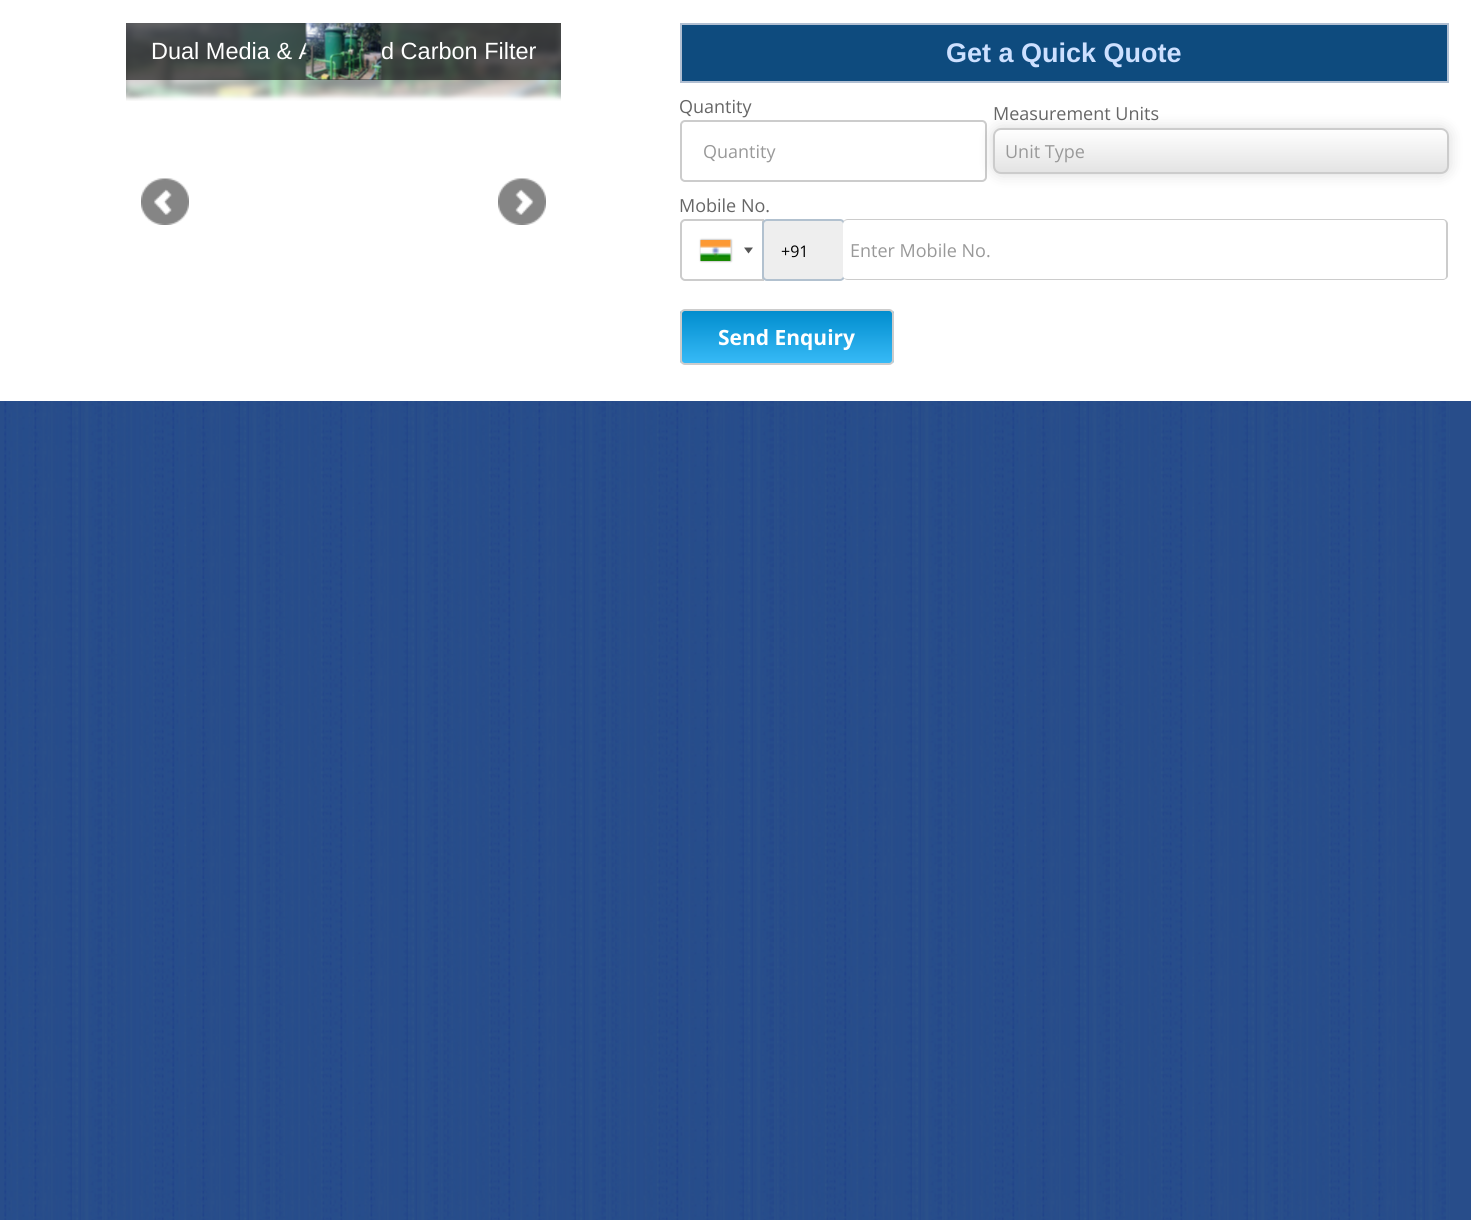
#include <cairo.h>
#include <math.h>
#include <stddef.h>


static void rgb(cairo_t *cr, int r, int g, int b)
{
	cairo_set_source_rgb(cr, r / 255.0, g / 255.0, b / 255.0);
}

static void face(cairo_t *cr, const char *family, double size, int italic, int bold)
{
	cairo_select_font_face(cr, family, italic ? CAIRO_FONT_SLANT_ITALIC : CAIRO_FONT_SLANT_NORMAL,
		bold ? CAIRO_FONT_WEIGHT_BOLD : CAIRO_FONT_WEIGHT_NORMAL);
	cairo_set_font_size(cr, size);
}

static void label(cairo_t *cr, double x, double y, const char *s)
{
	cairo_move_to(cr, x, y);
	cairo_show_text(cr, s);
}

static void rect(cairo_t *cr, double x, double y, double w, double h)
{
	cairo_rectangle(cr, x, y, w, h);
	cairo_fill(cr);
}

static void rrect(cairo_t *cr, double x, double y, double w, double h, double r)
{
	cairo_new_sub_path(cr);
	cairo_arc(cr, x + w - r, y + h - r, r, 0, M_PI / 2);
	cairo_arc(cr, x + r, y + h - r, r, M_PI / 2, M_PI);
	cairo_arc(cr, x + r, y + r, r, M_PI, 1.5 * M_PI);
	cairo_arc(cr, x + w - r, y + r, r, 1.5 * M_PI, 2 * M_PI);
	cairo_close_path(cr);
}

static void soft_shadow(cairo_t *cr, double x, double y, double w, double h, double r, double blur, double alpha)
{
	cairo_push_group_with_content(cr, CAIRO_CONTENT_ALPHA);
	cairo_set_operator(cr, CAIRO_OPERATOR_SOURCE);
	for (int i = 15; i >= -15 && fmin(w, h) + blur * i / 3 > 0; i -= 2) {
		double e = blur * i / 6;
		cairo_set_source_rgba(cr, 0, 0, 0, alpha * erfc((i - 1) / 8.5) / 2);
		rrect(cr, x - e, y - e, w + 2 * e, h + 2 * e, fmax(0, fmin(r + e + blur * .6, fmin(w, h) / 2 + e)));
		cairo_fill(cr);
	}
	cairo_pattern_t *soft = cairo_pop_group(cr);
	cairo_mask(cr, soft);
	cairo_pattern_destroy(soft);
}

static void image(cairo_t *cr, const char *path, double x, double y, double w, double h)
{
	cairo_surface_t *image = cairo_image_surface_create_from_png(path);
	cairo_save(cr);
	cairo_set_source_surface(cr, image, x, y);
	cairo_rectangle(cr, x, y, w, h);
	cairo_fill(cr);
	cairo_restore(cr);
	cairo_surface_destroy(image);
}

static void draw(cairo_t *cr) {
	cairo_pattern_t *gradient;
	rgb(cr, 40, 77, 138);
	cairo_paint(cr);
	image(cr, "image0.png", 4, 401, 1446, 819);
	rgb(cr, 255, 255, 255);
	rect(cr, 0, 0, 1471, 401);
	image(cr, "image1.png", 126, 23, 21, 78);
	cairo_save(cr);
	cairo_rectangle(cr, 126, 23, 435, 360);
	cairo_clip(cr);
	rgb(cr, 255, 255, 255);
	soft_shadow(cr, -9, 8, 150, 87, 0, 3, 0.5);
	cairo_restore(cr);
	image(cr, "image2.png", 126, 23, 435, 78);
	cairo_save(cr);
	cairo_rectangle(cr, 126, 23, 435, 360);
	cairo_clip(cr);
	rgb(cr, 255, 255, 255);
	soft_shadow(cr, 126, 8, 450, 87, 0, 3, 0.5);
	cairo_restore(cr);
	image(cr, "image4.png", 555, 23, 6, 76);
	rgb(cr, 14, 75, 126);
	cairo_rectangle(cr, 681, 24, 767, 58);
	cairo_fill_preserve(cr);
	rgb(cr, 177, 191, 210);
	cairo_stroke(cr);
	cairo_save(cr);
	cairo_rectangle(cr, 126, 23, 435, 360);
	cairo_clip(cr);
	rgb(cr, 255, 255, 255);
	soft_shadow(cr, 561, 8, 450, 87, 0, 3, 0.5);
	cairo_restore(cr);
	cairo_set_source_rgba(cr, 0, 0, 0, 0.6);
	rect(cr, 126, 23, 435, 57);
	face(cr, "Liberation Sans", 23.5, 0, 0);
	rgb(cr, 255, 255, 255);
	label(cr, 151, 59, "Dual Media & A");
	image(cr, "image3.png", 305, 23, 77, 57);
	label(cr, 381, 59, "d Carbon Filter");
	image(cr, "image5.png", 141, 178, 48, 47);
	image(cr, "image6.png", 498, 178, 48, 47);
	face(cr, "Liberation Sans", 27, 0, 1);
	rgb(cr, 205, 224, 255);
	label(cr, 946, 62, "Get a Quick Quote");
	face(cr, "Open Sans", 18, 0, 0);
	rgb(cr, 102, 102, 102);
	label(cr, 679, 113, "Quantity");
	rrect(cr, 681, 121, 305, 60, 4);
	rgb(cr, 204, 204, 204);
	cairo_stroke(cr);
	rgb(cr, 153, 153, 153);
	label(cr, 703, 158, "Quantity");
	rgb(cr, 102, 102, 102);
	label(cr, 993, 120, "Measurement Units");
	rgb(cr, 0, 0, 0);
	soft_shadow(cr, 993, 128, 456, 46, 8, 7.5, 0.15);
	cairo_save(cr);
	rrect(cr, 993, 128, 456, 46, 8);
	cairo_clip(cr);
	gradient = cairo_pattern_create_linear(1221, 129, 1221, 173);
	cairo_pattern_add_color_stop_rgba(gradient, 0, 1, 1, 1, 1);
	cairo_pattern_add_color_stop_rgba(gradient, 1, 0.89, 0.89, 0.89, 1);
	cairo_set_source(cr, gradient);
	cairo_pattern_destroy(gradient);
	rect(cr, 993, 129, 456, 44);
	cairo_restore(cr);
	rrect(cr, 994, 129, 454, 44, 7);
	rgb(cr, 204, 204, 204);
	cairo_stroke(cr);
	rgb(cr, 153, 153, 153);
	label(cr, 1005, 158, "Unit Type");
	rgb(cr, 102, 102, 102);
	label(cr, 679, 212, "Mobile No.");
	cairo_new_path(cr);
	cairo_move_to(cr, 685, 220);
	cairo_line_to(cr, 763, 220);
	cairo_line_to(cr, 763, 280);
	cairo_line_to(cr, 685, 280);
	cairo_curve_to(cr, 683, 280, 681, 278, 681, 276);
	cairo_line_to(cr, 681, 224);
	cairo_curve_to(cr, 681, 222, 683, 220, 685, 220);
	cairo_close_path(cr);
	rgb(cr, 204, 204, 204);
	cairo_stroke(cr);
	rgb(cr, 136, 136, 136);
	soft_shadow(cr, 701, 240, 30, 21, 0, 1, 1);
	rgb(cr, 219, 219, 219);
	rect(cr, 730, 240, 1, 21);
	image(cr, "image7.png", 700, 240, 31, 21);
	rgb(cr, 85, 85, 85);
	cairo_new_path(cr);
	cairo_move_to(cr, 744, 247.5);
	cairo_line_to(cr, 753, 247.5);
	cairo_line_to(cr, 748.5, 253.5);
	cairo_close_path(cr);
	cairo_fill(cr);
	rgb(cr, 238, 238, 238);
	rrect(cr, 763, 220, 81, 60, 4);
	cairo_fill_preserve(cr);
	rgb(cr, 178, 193, 207);
	cairo_stroke(cr);
	face(cr, "Open Sans", 16, 0, 0);
	rgb(cr, 0, 0, 0);
	label(cr, 781, 257, "+91");
	rgb(cr, 255, 255, 255);
	cairo_new_path(cr);
	cairo_move_to(cr, 848, 220);
	cairo_line_to(cr, 1443, 220);
	cairo_curve_to(cr, 1445, 220, 1446, 222, 1446, 224);
	cairo_line_to(cr, 1446, 276);
	cairo_curve_to(cr, 1446, 278, 1445, 279, 1443, 279);
	cairo_line_to(cr, 848, 279);
	cairo_curve_to(cr, 845, 279, 843, 278, 843, 276);
	cairo_line_to(cr, 843, 224);
	cairo_curve_to(cr, 843, 222, 845, 220, 848, 220);
	cairo_close_path(cr);
	cairo_fill(cr);
	rgb(cr, 204, 204, 204);
	cairo_set_fill_rule(cr, CAIRO_FILL_RULE_EVEN_ODD);
	cairo_new_path(cr);
	cairo_move_to(cr, 848, 219);
	cairo_line_to(cr, 1443, 219);
	cairo_curve_to(cr, 1445, 219, 1448, 221, 1448, 224);
	cairo_line_to(cr, 1448, 276);
	cairo_curve_to(cr, 1448, 278, 1445, 280, 1443, 280);
	cairo_line_to(cr, 848, 280);
	cairo_curve_to(cr, 845, 280, 843, 278, 843, 276);
	cairo_line_to(cr, 843, 224);
	cairo_curve_to(cr, 843, 221, 845, 219, 848, 219);
	cairo_close_path(cr);
	cairo_move_to(cr, 848, 220);
	cairo_line_to(cr, 1443, 220);
	cairo_curve_to(cr, 1445, 220, 1446, 222, 1446, 224);
	cairo_line_to(cr, 1446, 276);
	cairo_curve_to(cr, 1446, 278, 1445, 279, 1443, 279);
	cairo_line_to(cr, 848, 279);
	cairo_curve_to(cr, 845, 279, 843, 278, 843, 276);
	cairo_line_to(cr, 843, 224);
	cairo_curve_to(cr, 843, 222, 845, 220, 848, 220);
	cairo_close_path(cr);
	cairo_fill(cr);
	face(cr, "Open Sans", 18, 0, 0);
	rgb(cr, 153, 153, 153);
	label(cr, 850, 257, "Enter Mobile No.");
	cairo_save(cr);
	cairo_set_fill_rule(cr, CAIRO_FILL_RULE_WINDING);
	rrect(cr, 680, 309, 214, 56, 5);
	cairo_clip(cr);
	gradient = cairo_pattern_create_linear(787, 311, 787, 363);
	cairo_pattern_add_color_stop_rgba(gradient, 0, 0.004, 0.553, 0.808, 1);
	cairo_pattern_add_color_stop_rgba(gradient, 1, 0.216, 0.729, 0.965, 1);
	cairo_set_source(cr, gradient);
	cairo_pattern_destroy(gradient);
	rect(cr, 680, 311, 214, 52);
	cairo_restore(cr);
	rrect(cr, 681, 310, 212, 54, 4);
	rgb(cr, 204, 204, 204);
	cairo_stroke(cr);
	face(cr, "Open Sans", 21, 0, 1);
	rgb(cr, 255, 255, 255);
	label(cr, 718, 345, "Send Enquiry");
}

int main(void) {
	cairo_surface_t *surface = cairo_image_surface_create(CAIRO_FORMAT_RGB24, 1471, 1220);
	cairo_t *cr = cairo_create(surface);
	cairo_font_options_t *options = cairo_font_options_create();
	cairo_font_options_set_hint_metrics(options, CAIRO_HINT_METRICS_OFF);
	cairo_font_options_set_hint_style(options, CAIRO_HINT_STYLE_NONE);
	cairo_set_font_options(cr, options);
	cairo_set_miter_limit(cr, 4);
	draw(cr);
	cairo_surface_write_to_png(surface, "render.png");
	cairo_font_options_destroy(options);
	cairo_destroy(cr);
	cairo_surface_destroy(surface);
	return 0;
}
